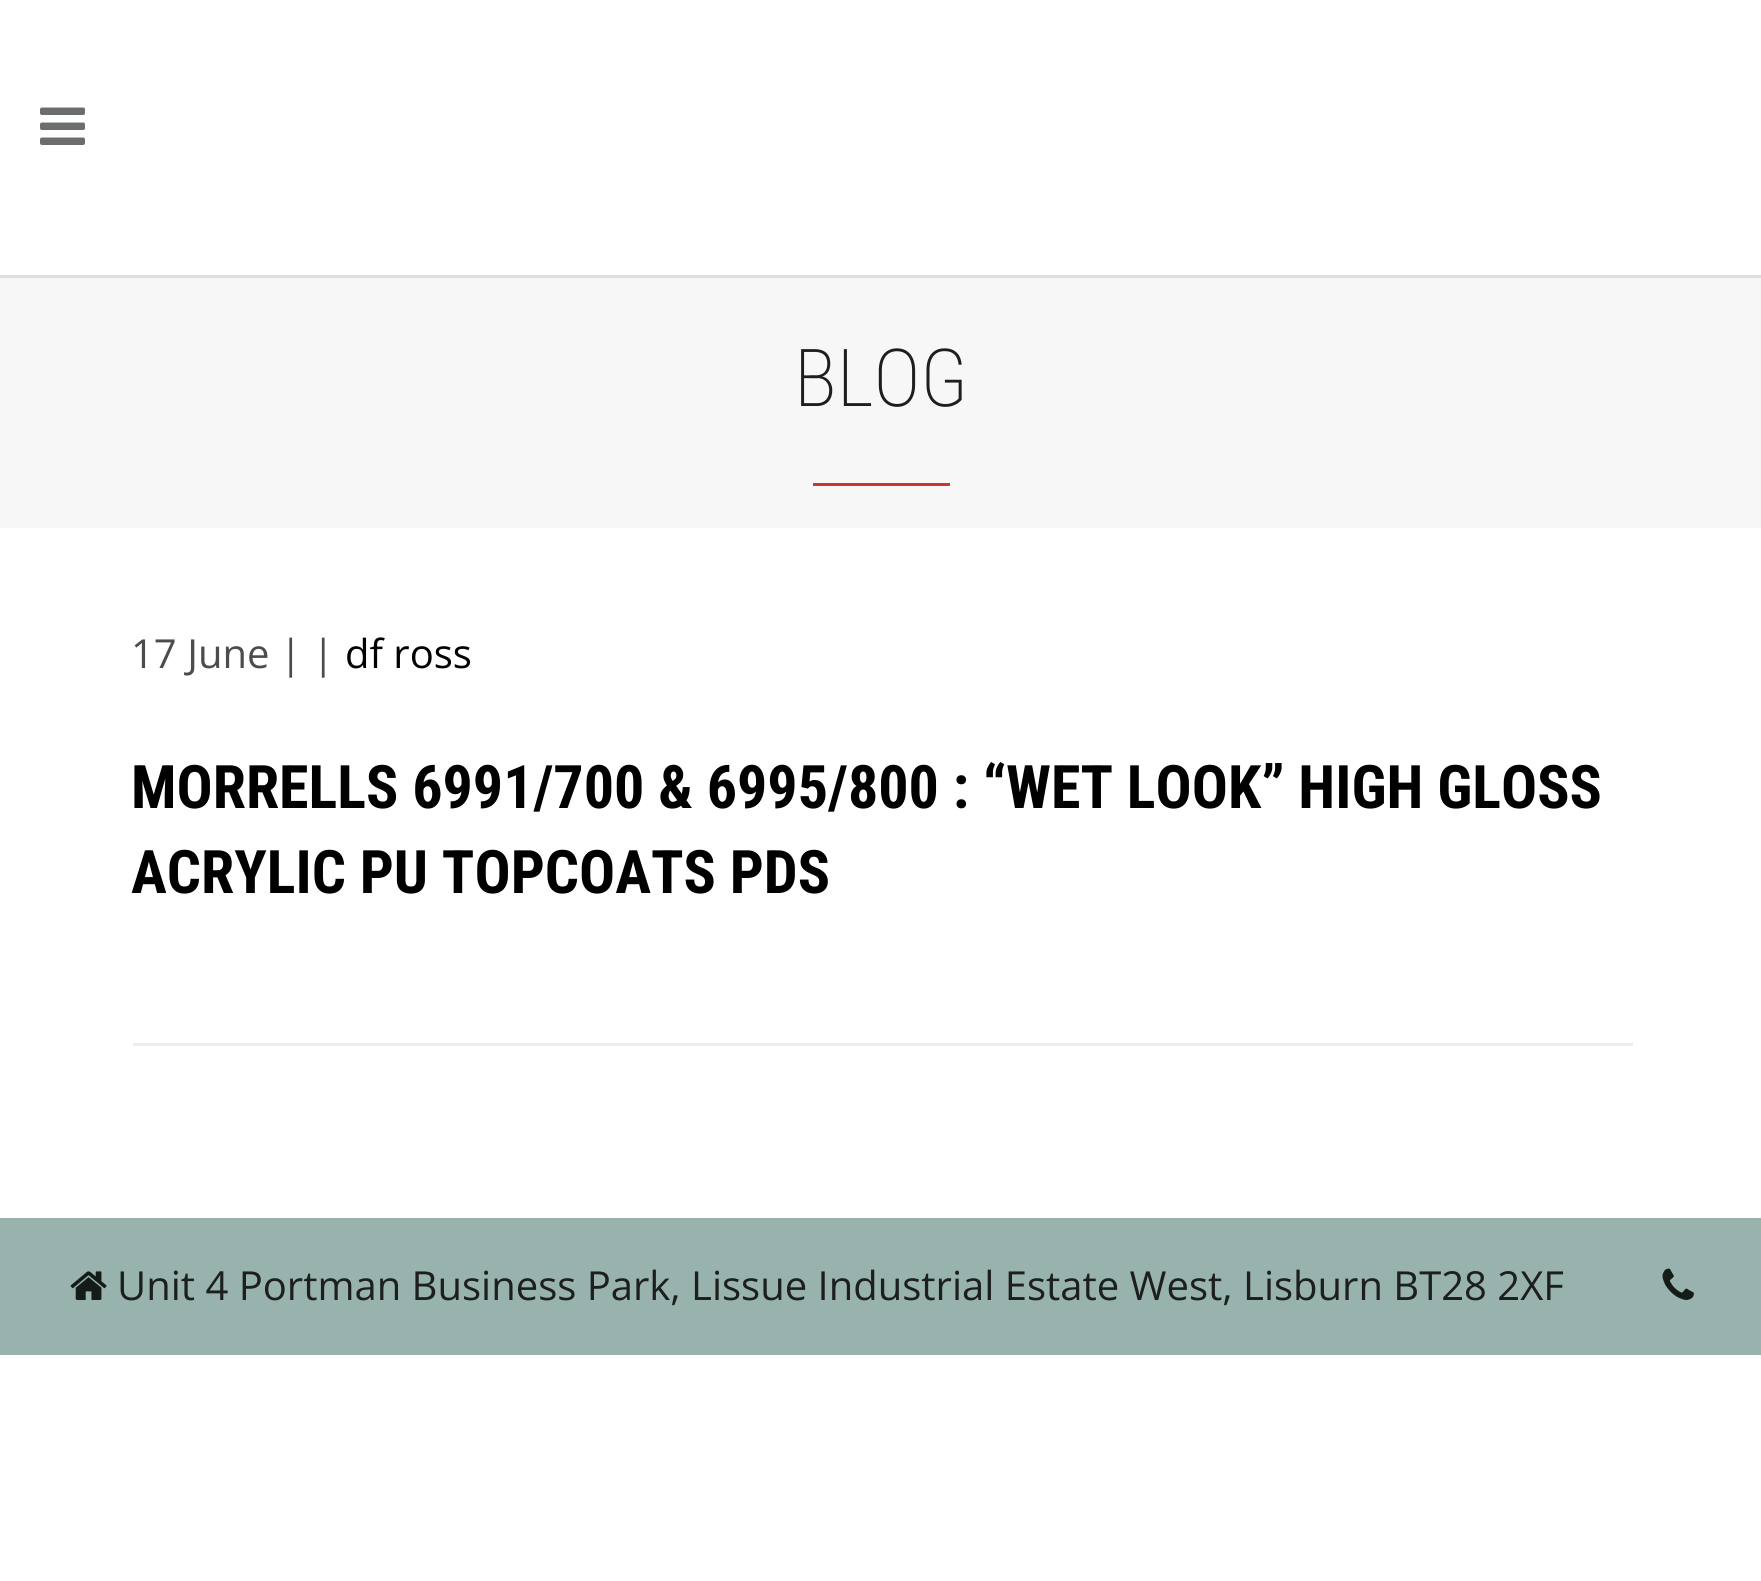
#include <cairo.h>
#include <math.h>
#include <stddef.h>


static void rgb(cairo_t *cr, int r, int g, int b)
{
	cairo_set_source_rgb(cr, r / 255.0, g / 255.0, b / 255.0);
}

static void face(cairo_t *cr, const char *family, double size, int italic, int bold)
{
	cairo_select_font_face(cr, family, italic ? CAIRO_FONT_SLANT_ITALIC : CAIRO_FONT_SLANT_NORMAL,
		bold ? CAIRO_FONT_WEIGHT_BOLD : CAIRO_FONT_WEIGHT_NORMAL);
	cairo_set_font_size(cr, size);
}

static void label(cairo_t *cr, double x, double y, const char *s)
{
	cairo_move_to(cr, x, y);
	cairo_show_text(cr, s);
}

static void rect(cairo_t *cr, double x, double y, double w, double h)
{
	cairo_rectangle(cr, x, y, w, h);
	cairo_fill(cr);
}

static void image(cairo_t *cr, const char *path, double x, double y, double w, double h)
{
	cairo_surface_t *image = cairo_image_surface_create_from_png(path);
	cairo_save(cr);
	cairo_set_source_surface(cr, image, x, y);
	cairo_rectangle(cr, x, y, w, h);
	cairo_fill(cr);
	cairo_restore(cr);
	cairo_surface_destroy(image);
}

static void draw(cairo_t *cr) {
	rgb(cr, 255, 255, 255);
	cairo_paint(cr);
	rgb(cr, 222, 222, 222);
	rect(cr, 0, 275, 1761, 3);
	image(cr, "image0.png", 40, 107, 45, 38);
	rgb(cr, 247, 247, 247);
	rect(cr, 0, 278, 1761, 250);
	face(cr, "Roboto Condensed ExtraLight", 80, 0, 0);
	rgb(cr, 28, 31, 29);
	label(cr, 794, 406, "BLOG");
	rgb(cr, 201, 54, 54);
	rect(cr, 813, 483, 137, 3);
	rgb(cr, 237, 237, 237);
	rect(cr, 133, 1043, 1500, 3);
	face(cr, "Open Sans", 40, 0, 0);
	rgb(cr, 77, 75, 75);
	label(cr, 131, 668, "17 June | |");
	rgb(cr, 0, 0, 0);
	label(cr, 345, 668, "df ross");
	face(cr, "Roboto Condensed", 60, 0, 1);
	label(cr, 131, 808, "MORRELLS 6991/700 & 6995/800 : “WET LOOK” HIGH GLOSS");
	label(cr, 131, 893, "ACRYLIC PU TOPCOATS PDS");
	rgb(cr, 152, 179, 174);
	rect(cr, 0, 1218, 1761, 137);
	image(cr, "image1.png", 70, 1271, 37, 29);
	face(cr, "Open Sans", 40, 0, 0);
	rgb(cr, 28, 31, 29);
	label(cr, 117, 1300, "Unit 4 Portman Business Park, Lissue Industrial Estate West, Lisburn BT28 2XF");
	image(cr, "image2.png", 1662, 1268, 32, 32);
}

int main(void) {
	cairo_surface_t *surface = cairo_image_surface_create(CAIRO_FORMAT_RGB24, 1761, 1581);
	cairo_t *cr = cairo_create(surface);
	cairo_font_options_t *options = cairo_font_options_create();
	cairo_font_options_set_hint_metrics(options, CAIRO_HINT_METRICS_OFF);
	cairo_font_options_set_hint_style(options, CAIRO_HINT_STYLE_NONE);
	cairo_set_font_options(cr, options);
	cairo_set_miter_limit(cr, 4);
	draw(cr);
	cairo_surface_write_to_png(surface, "render.png");
	cairo_font_options_destroy(options);
	cairo_destroy(cr);
	cairo_surface_destroy(surface);
	return 0;
}
